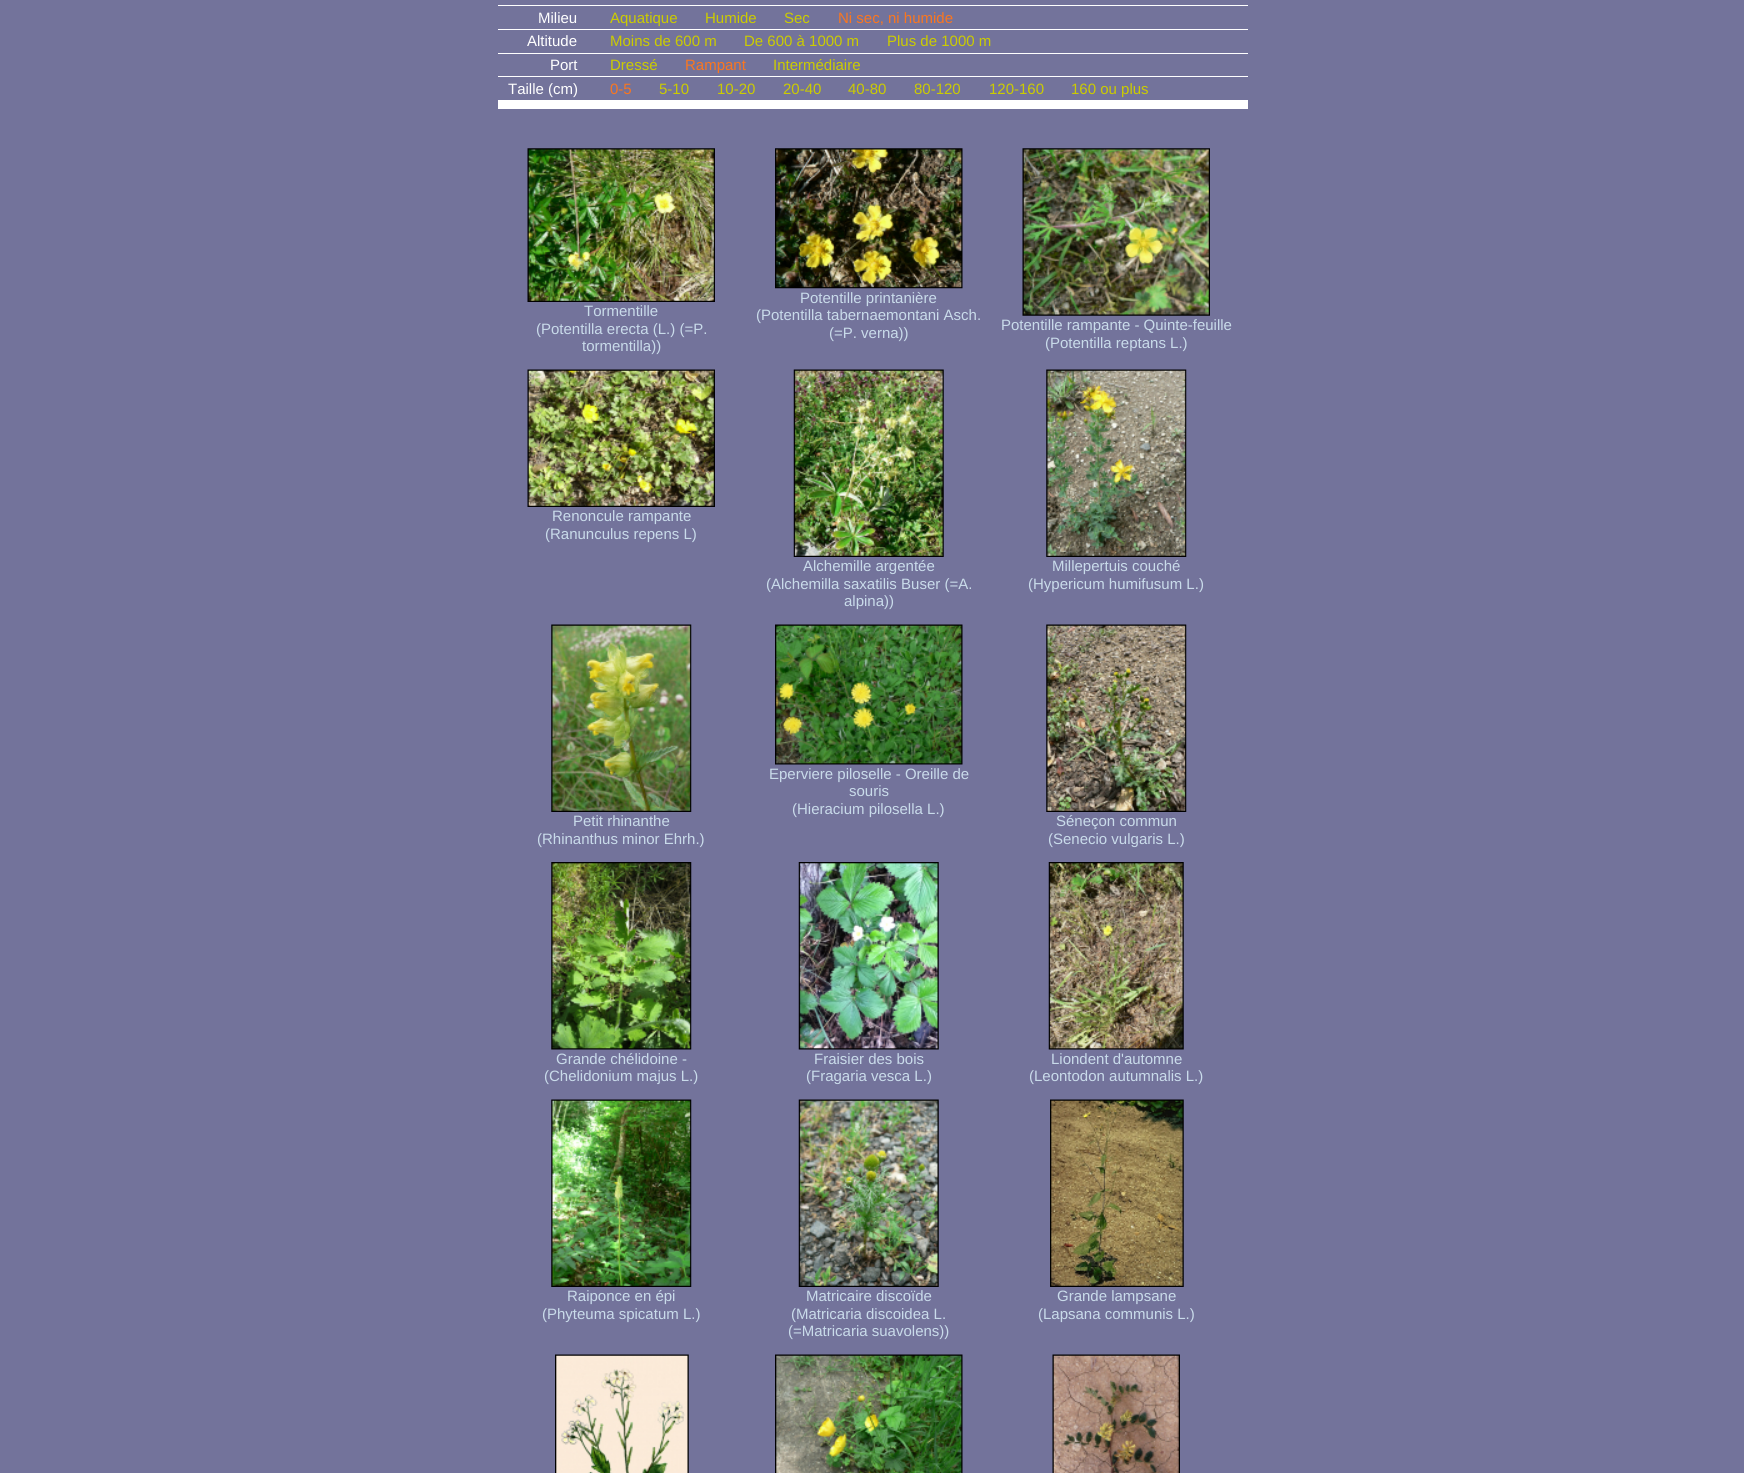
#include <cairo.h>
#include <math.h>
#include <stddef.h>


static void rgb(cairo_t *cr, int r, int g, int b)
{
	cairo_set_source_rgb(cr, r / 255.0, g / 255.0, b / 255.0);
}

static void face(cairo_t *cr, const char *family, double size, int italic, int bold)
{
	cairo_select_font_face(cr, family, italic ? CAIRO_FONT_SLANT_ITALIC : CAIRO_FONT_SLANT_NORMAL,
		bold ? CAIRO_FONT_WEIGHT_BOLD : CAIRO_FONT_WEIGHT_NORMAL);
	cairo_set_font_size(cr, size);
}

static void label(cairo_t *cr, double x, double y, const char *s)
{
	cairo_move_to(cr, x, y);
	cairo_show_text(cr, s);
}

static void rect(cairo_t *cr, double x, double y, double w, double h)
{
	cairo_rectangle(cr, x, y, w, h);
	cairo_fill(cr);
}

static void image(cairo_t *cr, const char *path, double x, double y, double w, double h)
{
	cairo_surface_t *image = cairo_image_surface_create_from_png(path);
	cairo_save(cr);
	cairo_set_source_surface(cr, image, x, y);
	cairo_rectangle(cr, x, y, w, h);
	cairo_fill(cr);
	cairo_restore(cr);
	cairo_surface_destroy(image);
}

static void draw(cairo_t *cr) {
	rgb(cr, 115, 115, 155);
	cairo_paint(cr);
	rgb(cr, 255, 255, 255);
	rect(cr, 498, 100, 750, 9);
	rect(cr, 498, 5, 750, 1);
	rect(cr, 498, 29, 750, 1);
	face(cr, "Liberation Sans", 15, 0, 0);
	label(cr, 538, 23, "Milieu");
	rgb(cr, 204, 204, 0);
	label(cr, 610, 23, "Aquatique");
	label(cr, 705, 23, "Humide");
	label(cr, 784, 23, "Sec");
	rgb(cr, 250, 118, 31);
	label(cr, 838, 23, "Ni sec, ni humide");
	rgb(cr, 255, 255, 255);
	rect(cr, 498, 53, 750, 1);
	label(cr, 527, 46, "Altitude");
	rgb(cr, 204, 204, 0);
	label(cr, 610, 46, "Moins de 600 m");
	label(cr, 744, 46, "De 600 à 1000 m");
	label(cr, 887, 46, "Plus de 1000 m");
	rgb(cr, 255, 255, 255);
	rect(cr, 498, 76, 750, 1);
	label(cr, 550, 70, "Port");
	rgb(cr, 204, 204, 0);
	label(cr, 610, 70, "Dressé");
	rgb(cr, 250, 118, 31);
	label(cr, 685, 70, "Rampant");
	rgb(cr, 204, 204, 0);
	label(cr, 773, 70, "Intermédiaire");
	rgb(cr, 255, 255, 255);
	label(cr, 508, 94, "Taille (cm)");
	rgb(cr, 250, 118, 31);
	label(cr, 610, 94, "0-5");
	rgb(cr, 204, 204, 0);
	label(cr, 659, 94, "5-10");
	label(cr, 717, 94, "10-20");
	label(cr, 783, 94, "20-40");
	label(cr, 848, 94, "40-80");
	label(cr, 914, 94, "80-120");
	label(cr, 989, 94, "120-160");
	label(cr, 1071, 94, "160 ou plus");
	image(cr, "image0.png", 527, 148, 188, 154);
	rgb(cr, 201, 219, 234);
	label(cr, 584, 316, "Tormentille");
	label(cr, 536, 334, "(Potentilla erecta (L.) (=P.");
	label(cr, 582, 351, "tormentilla))");
	image(cr, "image1.png", 775, 148, 188, 141);
	label(cr, 800, 303, "Potentille printanière");
	label(cr, 756, 320, "(Potentilla tabernaemontani Asch.");
	label(cr, 829, 338, "(=P. verna))");
	image(cr, "image2.png", 1022, 148, 188, 168);
	label(cr, 1001, 330, "Potentille rampante - Quinte-feuille");
	label(cr, 1045, 348, "(Potentilla reptans L.)");
	image(cr, "image3.png", 527, 369, 188, 138);
	label(cr, 552, 521, "Renoncule rampante");
	label(cr, 545, 539, "(Ranunculus repens L)");
	image(cr, "image4.png", 793, 369, 151, 188);
	label(cr, 803, 571, "Alchemille argentée");
	label(cr, 766, 589, "(Alchemilla saxatilis Buser (=A.");
	label(cr, 844, 606, "alpina))");
	image(cr, "image5.png", 1046, 369, 141, 188);
	label(cr, 1052, 571, "Millepertuis couché");
	label(cr, 1028, 589, "(Hypericum humifusum L.)");
	image(cr, "image6.png", 775, 624, 188, 141);
	label(cr, 769, 779, "Eperviere piloselle - Oreille de");
	label(cr, 849, 796, "souris");
	label(cr, 792, 814, "(Hieracium pilosella L.)");
	image(cr, "image7.png", 551, 624, 141, 188);
	label(cr, 573, 826, "Petit rhinanthe");
	label(cr, 537, 844, "(Rhinanthus minor Ehrh.)");
	image(cr, "image8.png", 1046, 624, 141, 188);
	label(cr, 1056, 826, "Séneçon commun");
	label(cr, 1048, 844, "(Senecio vulgaris L.)");
	image(cr, "image9.png", 551, 862, 141, 188);
	label(cr, 556, 1064, "Grande chélidoine -");
	label(cr, 544, 1081, "(Chelidonium majus L.)");
	image(cr, "image10.png", 798, 862, 141, 188);
	label(cr, 814, 1064, "Fraisier des bois");
	label(cr, 806, 1081, "(Fragaria vesca L.)");
	image(cr, "image11.png", 1048, 862, 136, 188);
	label(cr, 1051, 1064, "Liondent d'automne");
	label(cr, 1029, 1081, "(Leontodon autumnalis L.)");
	image(cr, "image12.png", 551, 1099, 141, 188);
	label(cr, 567, 1301, "Raiponce en épi");
	label(cr, 542, 1319, "(Phyteuma spicatum L.)");
	image(cr, "image13.png", 798, 1099, 141, 188);
	label(cr, 806, 1301, "Matricaire discoïde");
	label(cr, 791, 1319, "(Matricaria discoidea L.");
	label(cr, 788, 1336, "(=Matricaria suavolens))");
	image(cr, "image14.png", 1050, 1099, 134, 188);
	label(cr, 1057, 1301, "Grande lampsane");
	label(cr, 1038, 1319, "(Lapsana communis L.)");
	image(cr, "image15.png", 555, 1354, 134, 119);
	image(cr, "image16.png", 775, 1354, 188, 119);
	image(cr, "image17.png", 1052, 1354, 128, 119);
}

int main(void) {
	cairo_surface_t *surface = cairo_image_surface_create(CAIRO_FORMAT_RGB24, 1744, 1473);
	cairo_t *cr = cairo_create(surface);
	cairo_font_options_t *options = cairo_font_options_create();
	cairo_font_options_set_hint_metrics(options, CAIRO_HINT_METRICS_OFF);
	cairo_font_options_set_hint_style(options, CAIRO_HINT_STYLE_NONE);
	cairo_set_font_options(cr, options);
	cairo_set_miter_limit(cr, 4);
	draw(cr);
	cairo_surface_write_to_png(surface, "render.png");
	cairo_font_options_destroy(options);
	cairo_destroy(cr);
	cairo_surface_destroy(surface);
	return 0;
}
